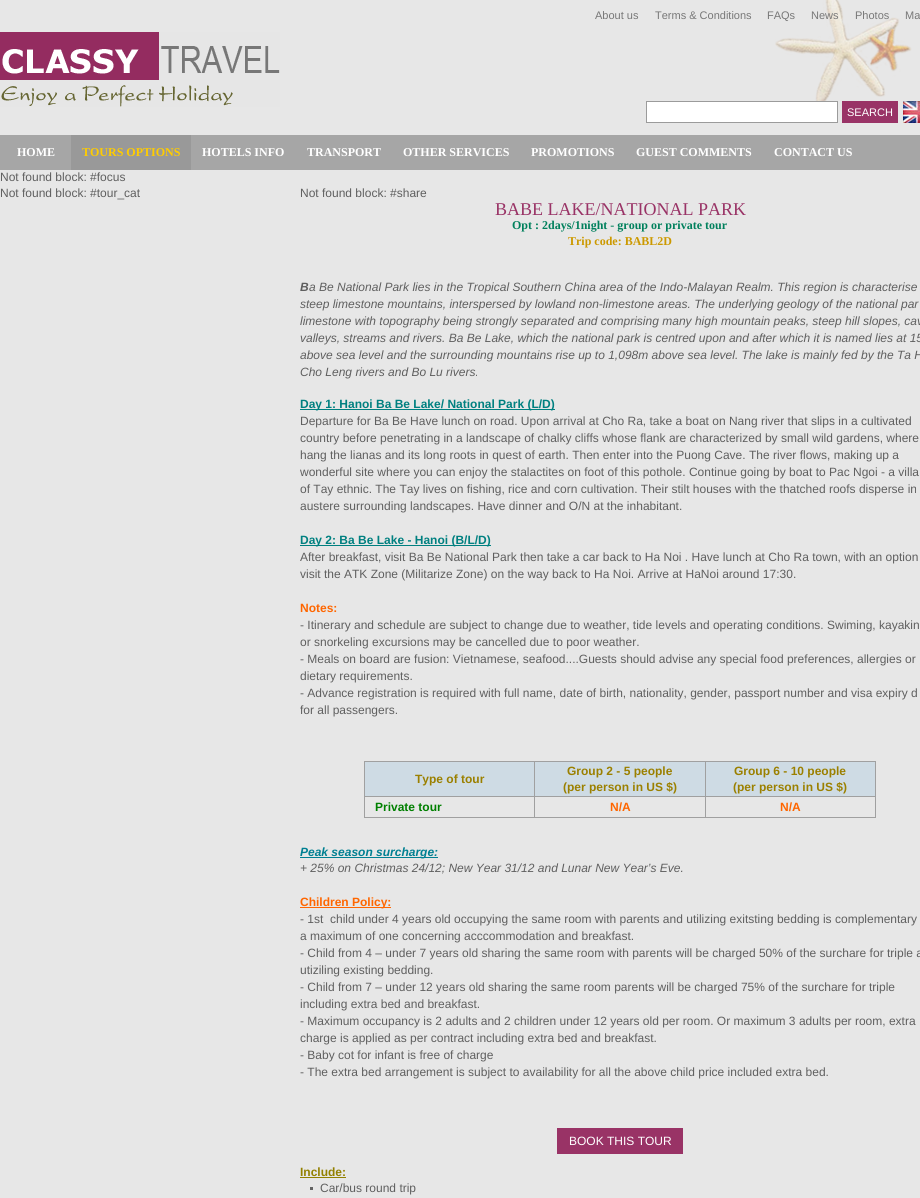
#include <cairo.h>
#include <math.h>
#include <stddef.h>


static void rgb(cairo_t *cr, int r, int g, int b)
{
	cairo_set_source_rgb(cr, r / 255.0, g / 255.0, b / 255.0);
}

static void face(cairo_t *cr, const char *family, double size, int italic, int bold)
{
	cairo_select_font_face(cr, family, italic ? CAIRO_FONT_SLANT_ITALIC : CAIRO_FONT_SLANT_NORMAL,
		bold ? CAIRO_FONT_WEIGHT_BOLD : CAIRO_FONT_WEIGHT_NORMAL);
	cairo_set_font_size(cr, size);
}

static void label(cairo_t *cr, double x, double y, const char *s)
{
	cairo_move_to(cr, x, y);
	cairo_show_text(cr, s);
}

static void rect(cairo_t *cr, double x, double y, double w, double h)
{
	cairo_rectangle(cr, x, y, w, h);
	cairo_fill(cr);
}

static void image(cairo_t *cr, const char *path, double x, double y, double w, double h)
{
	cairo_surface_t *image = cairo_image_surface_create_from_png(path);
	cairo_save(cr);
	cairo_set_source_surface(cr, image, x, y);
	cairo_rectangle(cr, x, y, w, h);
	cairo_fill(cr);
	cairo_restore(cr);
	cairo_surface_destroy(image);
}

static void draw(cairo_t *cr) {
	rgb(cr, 231, 231, 231);
	cairo_paint(cr);
	image(cr, "image0.png", 0, 32, 280, 75);
	image(cr, "image1.png", 775, 0, 137, 101);
	face(cr, "Liberation Sans", 11, 0, 0);
	rgb(cr, 119, 119, 119);
	label(cr, 595, 19, "About us");
	label(cr, 655, 19, "Terms & Conditions");
	label(cr, 767, 19, "FAQs");
	label(cr, 811, 19, "News");
	label(cr, 855, 19, "Photos");
	label(cr, 905, 19, "Ma");
	rgb(cr, 255, 255, 255);
	cairo_rectangle(cr, 646.5, 101.5, 191, 21);
	cairo_fill_preserve(cr);
	rgb(cr, 155, 155, 155);
	cairo_set_line_width(cr, 1);
	cairo_stroke(cr);
	rgb(cr, 153, 51, 102);
	rect(cr, 842, 101, 56, 22);
	rgb(cr, 255, 255, 255);
	label(cr, 847, 116, "SEARCH");
	image(cr, "image2.png", 903, 101, 17, 22);
	rgb(cr, 166, 166, 166);
	rect(cr, 0, 135, 920, 35);
	face(cr, "Liberation Serif", 12, 0, 1);
	rgb(cr, 255, 255, 255);
	label(cr, 17, 156, "HOME");
	rgb(cr, 153, 153, 153);
	rect(cr, 71, 135, 120, 35);
	rgb(cr, 255, 204, 0);
	label(cr, 82, 156, "TOURS OPTIONS");
	rgb(cr, 255, 255, 255);
	label(cr, 202, 156, "HOTELS INFO");
	label(cr, 307, 156, "TRANSPORT");
	label(cr, 403, 156, "OTHER SERVICES");
	label(cr, 531, 156, "PROMOTIONS");
	label(cr, 636, 156, "GUEST COMMENTS");
	label(cr, 774, 156, "CONTACT US");
	face(cr, "Liberation Sans", 12, 0, 0);
	rgb(cr, 95, 95, 95);
	label(cr, 0, 181, "Not found block: #focus");
	label(cr, 0, 197, "Not found block: #tour_cat");
	label(cr, 300, 197, "Not found block: #share");
	face(cr, "Liberation Serif", 18, 0, 0);
	rgb(cr, 153, 51, 102);
	label(cr, 495, 215, "BABE LAKE/NATIONAL PARK");
	face(cr, "Liberation Serif", 12, 0, 1);
	rgb(cr, 0, 128, 92);
	label(cr, 512, 229, "Opt : 2days/1night - group or private tour");
	rgb(cr, 204, 153, 0);
	label(cr, 568, 245, "Trip code: BABL2D");
	face(cr, "Liberation Sans", 12, 1, 1);
	rgb(cr, 95, 95, 95);
	label(cr, 300, 291, "B");
	face(cr, "Liberation Sans", 12, 1, 0);
	label(cr, 309, 291, "a Be National Park lies in the Tropical Southern China area of the Indo-Malayan Realm. This region is characterise");
	label(cr, 300, 308, "steep limestone mountains, interspersed by lowland non-limestone areas. The underlying geology of the national par");
	label(cr, 300, 325, "limestone with topography being strongly separated and comprising many high mountain peaks, steep hill slopes, cav");
	label(cr, 300, 342, "valleys, streams and rivers. Ba Be Lake, which the national park is centred upon and after which it is named lies at 15");
	label(cr, 300, 359, "above sea level and the surrounding mountains rise up to 1,098m above sea level. The lake is mainly fed by the Ta H");
	label(cr, 300, 376, "Cho Leng rivers and Bo Lu rivers.");
	rgb(cr, 0, 128, 128);
	rect(cr, 300, 409, 255, 1);
	face(cr, "Liberation Sans", 12, 0, 1);
	label(cr, 300, 408, "Day 1: Hanoi Ba Be Lake/ National Park (L/D)");
	face(cr, "Liberation Sans", 12, 0, 0);
	rgb(cr, 95, 95, 95);
	label(cr, 300, 425, "Departure for Ba Be Have lunch on road. Upon arrival at Cho Ra, take a boat on Nang river that slips in a cultivated");
	label(cr, 300, 442, "country before penetrating in a landscape of chalky cliffs whose flank are characterized by small wild gardens, where");
	label(cr, 300, 459, "hang the lianas and its long roots in quest of earth. Then enter into the Puong Cave. The river flows, making up a");
	label(cr, 300, 476, "wonderful site where you can enjoy the stalactites on foot of this pothole. Continue going by boat to Pac Ngoi - a villa");
	label(cr, 300, 493, "of Tay ethnic. The Tay lives on fishing, rice and corn cultivation. Their stilt houses with the thatched roofs disperse in");
	label(cr, 300, 510, "austere surrounding landscapes. Have dinner and O/N at the inhabitant.");
	rgb(cr, 0, 128, 128);
	rect(cr, 300, 545, 191, 1);
	face(cr, "Liberation Sans", 12, 0, 1);
	label(cr, 300, 544, "Day 2: Ba Be Lake - Hanoi (B/L/D)");
	face(cr, "Liberation Sans", 12, 0, 0);
	rgb(cr, 95, 95, 95);
	label(cr, 300, 561, "After breakfast, visit Ba Be National Park then take a car back to Ha Noi . Have lunch at Cho Ra town, with an option");
	label(cr, 300, 578, "visit the ATK Zone (Militarize Zone) on the way back to Ha Noi. Arrive at HaNoi around 17:30.");
	face(cr, "Liberation Sans", 12, 0, 1);
	rgb(cr, 255, 102, 0);
	label(cr, 300, 612, "Notes:");
	face(cr, "Liberation Sans", 12, 0, 0);
	rgb(cr, 95, 95, 95);
	label(cr, 300, 629, "- Itinerary and schedule are subject to change due to weather, tide levels and operating conditions. Swiming, kayakin");
	label(cr, 300, 646, "or snorkeling excursions may be cancelled due to poor weather.");
	label(cr, 300, 663, "- Meals on board are fusion: Vietnamese, seafood....Guests should advise any special food preferences, allergies or");
	label(cr, 300, 680, "dietary requirements.");
	label(cr, 300, 697, "- Advance registration is required with full name, date of birth, nationality, gender, passport number and visa expiry d");
	label(cr, 300, 714, "for all passengers.");
	rgb(cr, 160, 160, 160);
	rect(cr, 364, 761, 512, 1);
	rect(cr, 875, 761, 1, 57);
	rect(cr, 364, 817, 512, 1);
	rect(cr, 364, 761, 1, 57);
	rgb(cr, 206, 219, 228);
	rect(cr, 365, 762, 169, 34);
	face(cr, "Liberation Sans", 12, 0, 1);
	rgb(cr, 155, 128, 0);
	label(cr, 415, 783, "Type of tour");
	rgb(cr, 206, 219, 228);
	rect(cr, 535, 762, 170, 34);
	rgb(cr, 160, 160, 160);
	rect(cr, 705, 796, 171, 1);
	rect(cr, 705, 796, 1, 22);
	rect(cr, 534, 796, 172, 1);
	rect(cr, 534, 796, 1, 22);
	rect(cr, 364, 796, 171, 1);
	rect(cr, 534, 761, 1, 36);
	rgb(cr, 155, 128, 0);
	label(cr, 567, 775, "Group 2 - 5 people");
	label(cr, 563, 791, "(per person in US $)");
	rgb(cr, 206, 219, 228);
	rect(cr, 706, 762, 169, 34);
	rgb(cr, 160, 160, 160);
	rect(cr, 705, 761, 1, 36);
	rgb(cr, 155, 128, 0);
	label(cr, 734, 775, "Group 6 - 10 people");
	label(cr, 733, 791, "(per person in US $)");
	rgb(cr, 0, 128, 0);
	label(cr, 375, 811, "Private tour");
	rgb(cr, 255, 102, 0);
	label(cr, 610, 811, "N/A");
	label(cr, 780, 811, "N/A");
	rgb(cr, 0, 128, 146);
	rect(cr, 300, 857, 138, 1);
	face(cr, "Liberation Sans", 12, 1, 1);
	label(cr, 300, 856, "Peak season surcharge:");
	face(cr, "Liberation Sans", 12, 1, 0);
	rgb(cr, 95, 95, 95);
	label(cr, 300, 872, "+ 25% on Christmas 24/12; New Year 31/12 and Lunar New Year’s Eve.");
	rgb(cr, 255, 102, 0);
	rect(cr, 300, 907, 91, 1);
	face(cr, "Liberation Sans", 12, 0, 1);
	label(cr, 300, 906, "Children Policy:");
	face(cr, "Liberation Sans", 12, 0, 0);
	rgb(cr, 95, 95, 95);
	label(cr, 300, 923, "- 1st  child under 4 years old occupying the same room with parents and utilizing exitsting bedding is complementary");
	label(cr, 300, 940, "a maximum of one concerning acccommodation and breakfast.");
	label(cr, 300, 957, "- Child from 4 – under 7 years old sharing the same room with parents will be charged 50% of the surchare for triple a");
	label(cr, 300, 974, "utiziling existing bedding.");
	label(cr, 300, 991, "- Child from 7 – under 12 years old sharing the same room parents will be charged 75% of the surchare for triple");
	label(cr, 300, 1008, "including extra bed and breakfast.");
	label(cr, 300, 1025, "- Maximum occupancy is 2 adults and 2 children under 12 years old per room. Or maximum 3 adults per room, extra");
	label(cr, 300, 1042, "charge is applied as per contract including extra bed and breakfast.");
	label(cr, 300, 1059, "- Baby cot for infant is free of charge");
	label(cr, 300, 1076, "- The extra bed arrangement is subject to availability for all the above child price included extra bed.");
	rgb(cr, 153, 51, 102);
	rect(cr, 557, 1128, 126, 26);
	rgb(cr, 255, 255, 255);
	label(cr, 569, 1145, "BOOK THIS TOUR");
	face(cr, "Liberation Sans", 12, 0, 1);
	rgb(cr, 146, 128, 0);
	label(cr, 300, 1176, "Include:");
	rect(cr, 300, 1177, 46, 1);
	rgb(cr, 99, 99, 99);
	rect(cr, 310, 1187, 3, 3);
	face(cr, "Liberation Sans", 12, 0, 0);
	rgb(cr, 95, 95, 95);
	label(cr, 320, 1192, "Car/bus round trip");
}

int main(void) {
	cairo_surface_t *surface = cairo_image_surface_create(CAIRO_FORMAT_RGB24, 920, 1198);
	cairo_t *cr = cairo_create(surface);
	cairo_font_options_t *options = cairo_font_options_create();
	cairo_font_options_set_hint_metrics(options, CAIRO_HINT_METRICS_OFF);
	cairo_font_options_set_hint_style(options, CAIRO_HINT_STYLE_NONE);
	cairo_set_font_options(cr, options);
	cairo_set_miter_limit(cr, 4);
	draw(cr);
	cairo_surface_write_to_png(surface, "render.png");
	cairo_font_options_destroy(options);
	cairo_destroy(cr);
	cairo_surface_destroy(surface);
	return 0;
}
